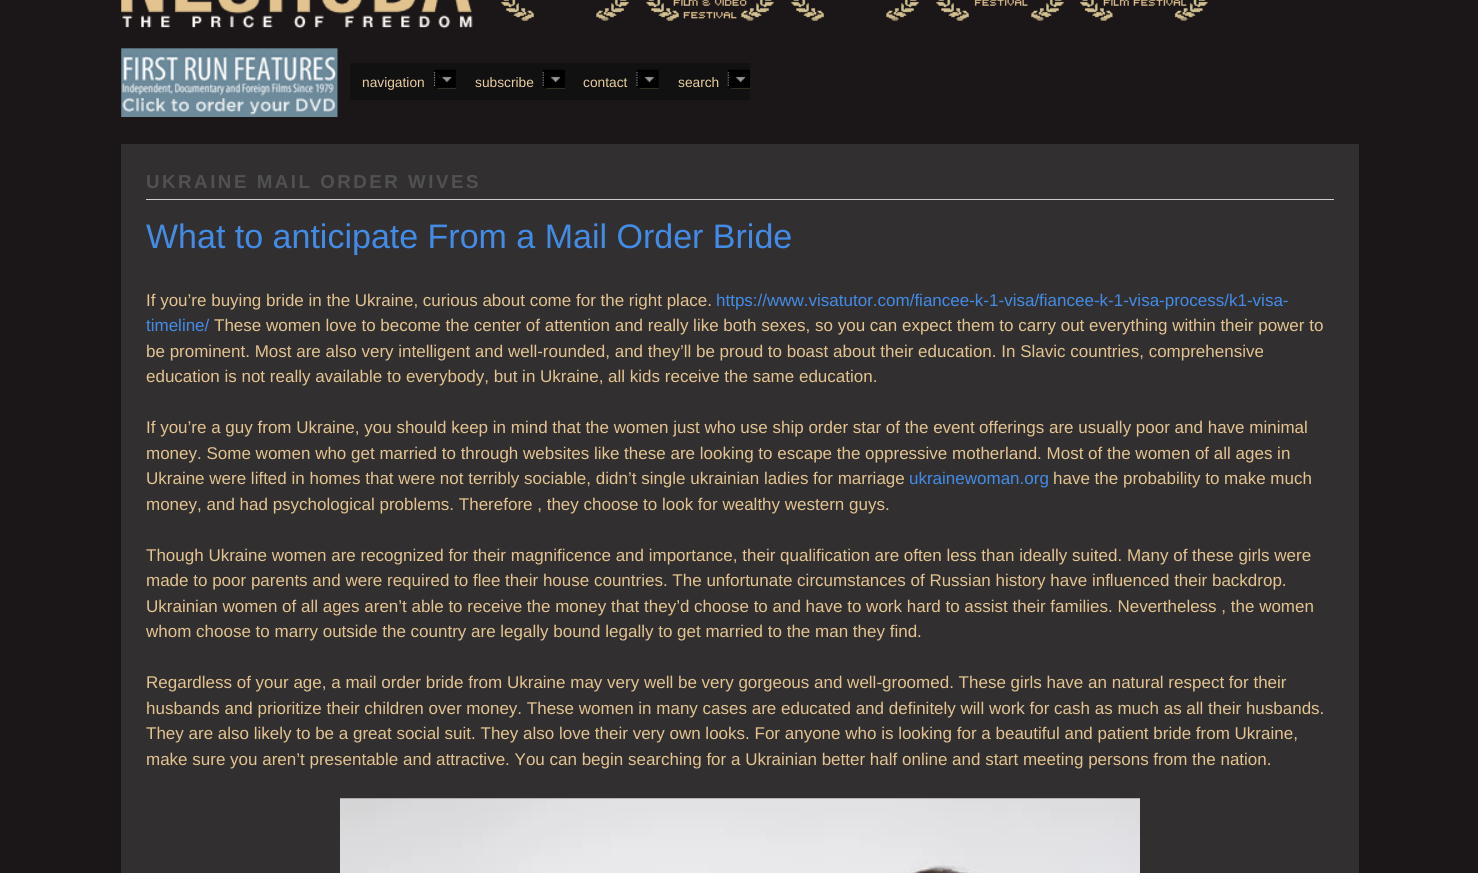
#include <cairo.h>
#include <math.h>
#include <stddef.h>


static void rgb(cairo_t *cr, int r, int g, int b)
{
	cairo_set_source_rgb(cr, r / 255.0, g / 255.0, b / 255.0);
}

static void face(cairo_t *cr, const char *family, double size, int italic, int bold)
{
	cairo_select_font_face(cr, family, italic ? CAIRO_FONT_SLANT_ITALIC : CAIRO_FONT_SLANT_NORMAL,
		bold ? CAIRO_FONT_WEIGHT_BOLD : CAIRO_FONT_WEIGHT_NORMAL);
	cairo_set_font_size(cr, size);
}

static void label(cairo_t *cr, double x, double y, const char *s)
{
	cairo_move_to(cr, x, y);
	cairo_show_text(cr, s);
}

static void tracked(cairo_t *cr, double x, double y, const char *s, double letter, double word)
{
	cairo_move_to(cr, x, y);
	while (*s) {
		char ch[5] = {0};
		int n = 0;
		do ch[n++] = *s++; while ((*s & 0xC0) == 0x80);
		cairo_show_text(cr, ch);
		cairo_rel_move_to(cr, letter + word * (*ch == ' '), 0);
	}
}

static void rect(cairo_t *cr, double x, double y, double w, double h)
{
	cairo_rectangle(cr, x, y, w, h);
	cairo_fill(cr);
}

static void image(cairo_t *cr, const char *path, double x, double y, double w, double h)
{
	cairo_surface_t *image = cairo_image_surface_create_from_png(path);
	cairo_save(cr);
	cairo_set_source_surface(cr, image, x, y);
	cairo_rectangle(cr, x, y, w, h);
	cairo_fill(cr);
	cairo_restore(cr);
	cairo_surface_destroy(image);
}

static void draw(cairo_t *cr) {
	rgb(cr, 27, 23, 24);
	cairo_paint(cr);
	image(cr, "image0.png", 121, 0, 1087, 29);
	image(cr, "image1.png", 121, 48, 217, 69);
	rgb(cr, 17, 17, 17);
	rect(cr, 350, 63, 400, 37);
	face(cr, "Liberation Sans", 13.75, 0, 0);
	rgb(cr, 233, 205, 160);
	label(cr, 362, 87, "navigation");
	image(cr, "image2.png", 433, 69, 23, 20);
	label(cr, 475, 87, "subscribe");
	image(cr, "image3.png", 542, 69, 23, 20);
	label(cr, 583, 87, "contact");
	image(cr, "image4.png", 636, 69, 23, 20);
	label(cr, 678, 87, "search");
	image(cr, "image5.png", 727, 69, 23, 20);
	rgb(cr, 50, 47, 48);
	rect(cr, 121, 144, 1238, 729);
	rgb(cr, 204, 204, 204);
	rect(cr, 146, 199, 1188, 1);
	face(cr, "Liberation Sans", 18.75, 0, 1);
	rgb(cr, 81, 81, 81);
	tracked(cr, 146, 188, "UKRAINE MAIL ORDER WIVES", 2.5, 0);
	face(cr, "Liberation Sans", 34, 0, 0);
	rgb(cr, 66, 140, 231);
	label(cr, 146, 248, "What to anticipate From a Mail Order Bride");
	face(cr, "Liberation Sans", 17, 0, 0);
	rgb(cr, 227, 195, 144);
	label(cr, 146, 306, "If you’re buying bride in the Ukraine, curious about come for the right place.");
	rgb(cr, 66, 140, 231);
	label(cr, 716, 306, "https://www.visatutor.com/fiancee-k-1-visa/fiancee-k-1-visa-process/k1-visa-");
	label(cr, 146, 331, "timeline/");
	rgb(cr, 227, 195, 144);
	label(cr, 214, 331, "These women love to become the center of attention and really like both sexes, so you can expect them to carry out everything within their power to");
	label(cr, 146, 357, "be prominent. Most are also very intelligent and well-rounded, and they’ll be proud to boast about their education. In Slavic countries, comprehensive");
	label(cr, 146, 382, "education is not really available to everybody, but in Ukraine, all kids receive the same education.");
	label(cr, 146, 433, "If you’re a guy from Ukraine, you should keep in mind that the women just who use ship order star of the event");
	label(cr, 979, 433, "offerings are usually poor and have minimal");
	label(cr, 146, 459, "money. Some women who get married to through websites like these are looking to escape the oppressive motherland. Most of the women of all ages in");
	label(cr, 146, 484, "Ukraine were lifted in homes that were not terribly sociable, didn’t single ukrainian ladies for marriage");
	rgb(cr, 66, 140, 231);
	label(cr, 909, 484, "ukrainewoman.org");
	rgb(cr, 227, 195, 144);
	label(cr, 1053, 484, "have the probability to make much");
	label(cr, 146, 510, "money, and had psychological problems. Therefore , they choose to look for wealthy western guys.");
	label(cr, 146, 561, "Though Ukraine women are recognized for their magnificence and importance, their qualification are often less than ideally suited. Many of these girls were");
	label(cr, 146, 586, "made to poor parents and were required to flee their house countries. The unfortunate circumstances of Russian history have influenced their backdrop.");
	label(cr, 146, 612, "Ukrainian women of all ages aren’t able to receive the money that they’d choose to and have to work hard to assist their families. Nevertheless , the women");
	label(cr, 146, 637, "whom choose to marry outside the country are legally bound legally to get married to the man they find.");
	label(cr, 146, 688, "Regardless of your age, a mail order bride from Ukraine may very well be very gorgeous and well-groomed. These girls have an natural respect for their");
	label(cr, 146, 714, "husbands and prioritize their children over money. These women in many cases are educated and definitely will work for cash as much as all their husbands.");
	label(cr, 146, 739, "They are also likely to be a great social suit. They also love their very own looks. For anyone who is looking for a beautiful and patient bride from Ukraine,");
	label(cr, 146, 765, "make sure you aren’t presentable and attractive. You can begin searching for a Ukrainian better half online and start meeting persons from the nation.");
	image(cr, "image6.png", 340, 798, 800, 75);
}

int main(void) {
	cairo_surface_t *surface = cairo_image_surface_create(CAIRO_FORMAT_RGB24, 1478, 873);
	cairo_t *cr = cairo_create(surface);
	cairo_font_options_t *options = cairo_font_options_create();
	cairo_font_options_set_hint_metrics(options, CAIRO_HINT_METRICS_OFF);
	cairo_font_options_set_hint_style(options, CAIRO_HINT_STYLE_NONE);
	cairo_set_font_options(cr, options);
	cairo_set_miter_limit(cr, 4);
	draw(cr);
	cairo_surface_write_to_png(surface, "render.png");
	cairo_font_options_destroy(options);
	cairo_destroy(cr);
	cairo_surface_destroy(surface);
	return 0;
}
